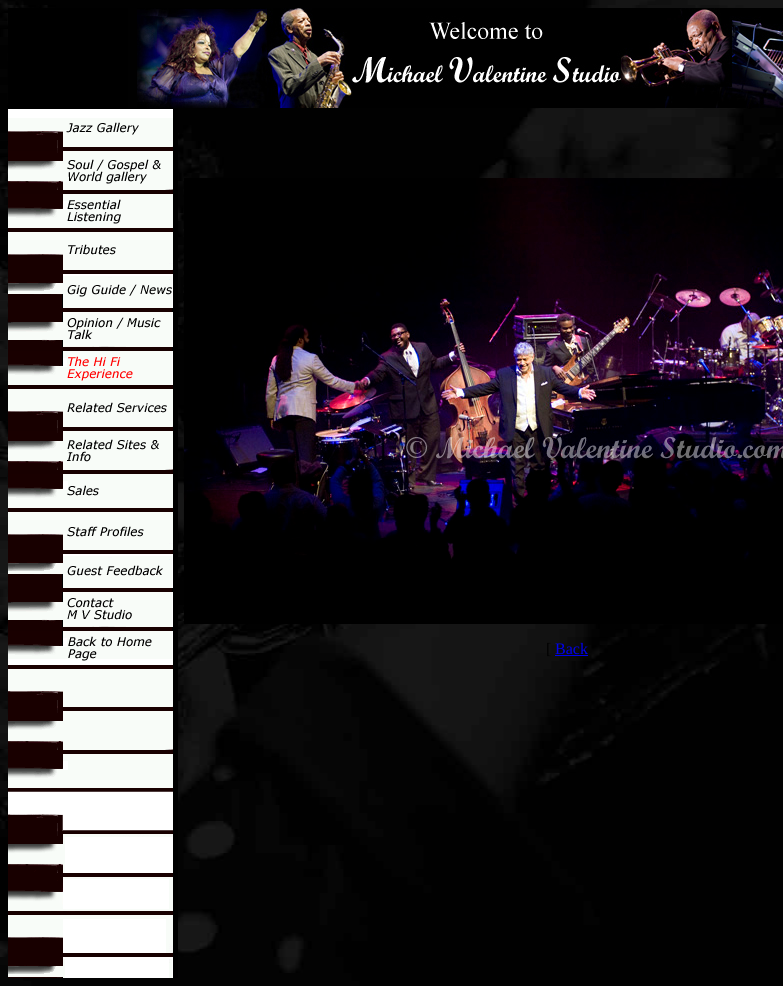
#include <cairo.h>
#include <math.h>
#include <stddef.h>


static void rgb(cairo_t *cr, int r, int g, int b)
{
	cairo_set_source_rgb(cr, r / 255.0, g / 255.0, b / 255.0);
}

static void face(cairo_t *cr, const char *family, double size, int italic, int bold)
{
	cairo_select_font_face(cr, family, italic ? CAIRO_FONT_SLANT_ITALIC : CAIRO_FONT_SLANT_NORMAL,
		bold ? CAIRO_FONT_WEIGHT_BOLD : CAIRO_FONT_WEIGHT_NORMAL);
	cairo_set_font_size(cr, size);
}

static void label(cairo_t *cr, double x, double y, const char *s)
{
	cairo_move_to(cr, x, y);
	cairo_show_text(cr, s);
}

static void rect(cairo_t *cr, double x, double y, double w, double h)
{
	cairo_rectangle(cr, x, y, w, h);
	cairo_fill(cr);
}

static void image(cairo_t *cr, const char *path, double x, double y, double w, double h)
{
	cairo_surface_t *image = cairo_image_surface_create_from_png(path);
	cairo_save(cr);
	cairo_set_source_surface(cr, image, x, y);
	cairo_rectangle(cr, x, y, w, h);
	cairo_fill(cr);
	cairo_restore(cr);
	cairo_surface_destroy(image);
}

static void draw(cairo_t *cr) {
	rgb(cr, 255, 255, 255);
	cairo_paint(cr);
	image(cr, "image0.png", 0, 0, 783, 986);
	rgb(cr, 0, 0, 0);
	rect(cr, 8, 8, 120, 100);
	image(cr, "image1.png", 137, 8, 646, 100);
	rect(cr, 8, 108, 170, 870);
	image(cr, "image2.png", 8, 109, 165, 38);
	image(cr, "image3.png", 8, 147, 165, 4);
	image(cr, "image4.png", 8, 151, 165, 39);
	rgb(cr, 24, 0, 0);
	rect(cr, 8, 190, 165, 4);
	image(cr, "image5.png", 8, 194, 165, 34);
	rect(cr, 8, 228, 165, 4);
	image(cr, "image6.png", 8, 232, 165, 38);
	rect(cr, 8, 270, 165, 4);
	image(cr, "image7.png", 8, 274, 165, 34);
	rect(cr, 8, 308, 164, 4);
	image(cr, "image8.png", 8, 312, 165, 35);
	rect(cr, 8, 347, 164, 4);
	image(cr, "image9.png", 8, 351, 165, 34);
	rect(cr, 8, 385, 165, 4);
	image(cr, "image10.png", 8, 389, 165, 38);
	image(cr, "image3.png", 8, 427, 165, 4);
	image(cr, "image11.png", 8, 431, 165, 39);
	rect(cr, 8, 470, 165, 4);
	image(cr, "image12.png", 8, 474, 165, 34);
	rect(cr, 8, 508, 165, 4);
	image(cr, "image13.png", 8, 512, 165, 38);
	rect(cr, 8, 550, 165, 4);
	image(cr, "image14.png", 8, 554, 165, 34);
	rect(cr, 8, 588, 164, 4);
	image(cr, "image15.png", 8, 592, 165, 35);
	rect(cr, 8, 627, 164, 4);
	image(cr, "image16.png", 8, 631, 165, 34);
	image(cr, "image17.png", 8, 665, 165, 123);
	image(cr, "image18.png", 8, 788, 165, 190);
	image(cr, "image19.png", 184, 178, 599, 446);
	face(cr, "Liberation Serif", 16, 0, 0);
	rgb(cr, 0, 0, 0);
	label(cr, 546, 654, "[");
	rgb(cr, 0, 0, 238);
	label(cr, 555, 654, "Back");
	rect(cr, 555, 655, 33, 1);
}

int main(void) {
	cairo_surface_t *surface = cairo_image_surface_create(CAIRO_FORMAT_RGB24, 783, 986);
	cairo_t *cr = cairo_create(surface);
	cairo_font_options_t *options = cairo_font_options_create();
	cairo_font_options_set_hint_metrics(options, CAIRO_HINT_METRICS_OFF);
	cairo_font_options_set_hint_style(options, CAIRO_HINT_STYLE_NONE);
	cairo_set_font_options(cr, options);
	cairo_set_miter_limit(cr, 4);
	draw(cr);
	cairo_surface_write_to_png(surface, "render.png");
	cairo_font_options_destroy(options);
	cairo_destroy(cr);
	cairo_surface_destroy(surface);
	return 0;
}
